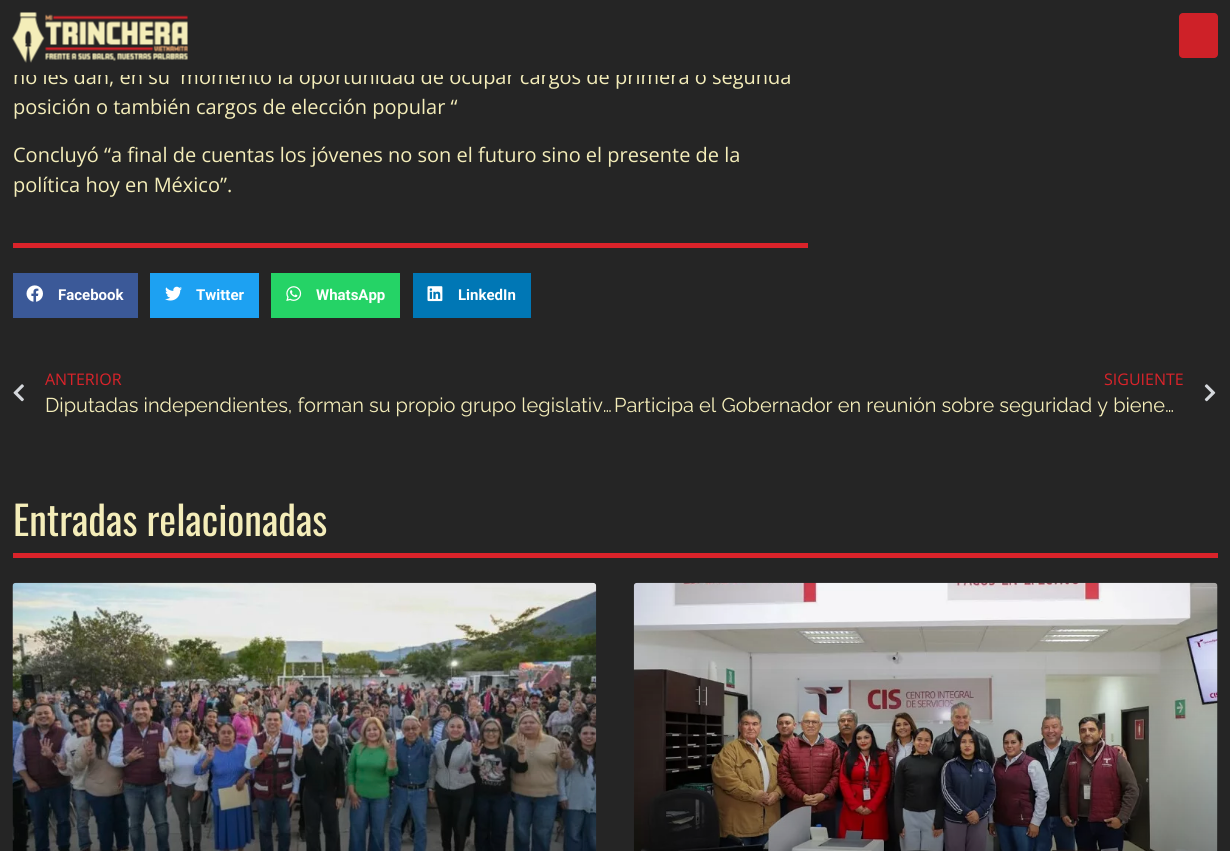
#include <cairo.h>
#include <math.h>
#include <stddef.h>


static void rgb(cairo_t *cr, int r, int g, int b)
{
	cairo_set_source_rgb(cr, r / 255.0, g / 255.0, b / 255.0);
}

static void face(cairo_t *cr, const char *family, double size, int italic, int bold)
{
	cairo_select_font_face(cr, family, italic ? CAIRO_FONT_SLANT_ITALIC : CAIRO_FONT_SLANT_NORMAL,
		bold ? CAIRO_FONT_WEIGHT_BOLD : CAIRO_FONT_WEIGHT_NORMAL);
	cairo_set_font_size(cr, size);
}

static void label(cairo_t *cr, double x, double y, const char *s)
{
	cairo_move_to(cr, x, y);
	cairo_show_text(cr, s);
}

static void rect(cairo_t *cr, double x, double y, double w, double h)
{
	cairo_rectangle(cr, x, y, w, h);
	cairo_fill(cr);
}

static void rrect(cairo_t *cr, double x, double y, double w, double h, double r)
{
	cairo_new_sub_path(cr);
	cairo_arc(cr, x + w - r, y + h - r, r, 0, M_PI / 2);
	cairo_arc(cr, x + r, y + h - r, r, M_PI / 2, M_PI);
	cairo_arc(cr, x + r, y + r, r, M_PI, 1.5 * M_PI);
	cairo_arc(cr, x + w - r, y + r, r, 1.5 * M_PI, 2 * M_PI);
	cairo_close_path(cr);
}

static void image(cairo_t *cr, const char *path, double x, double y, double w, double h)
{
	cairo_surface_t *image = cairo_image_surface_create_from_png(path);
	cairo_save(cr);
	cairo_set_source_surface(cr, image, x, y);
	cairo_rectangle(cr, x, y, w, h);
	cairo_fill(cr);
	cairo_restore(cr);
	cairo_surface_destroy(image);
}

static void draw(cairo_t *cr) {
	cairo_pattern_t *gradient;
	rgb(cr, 37, 37, 37);
	cairo_paint(cr);
	face(cr, "Open Sans", 20, 0, 0);
	rgb(cr, 244, 237, 185);
	label(cr, 13, 84, "no les dan, en su  momento la oportunidad de ocupar cargos de primera o segunda");
	rgb(cr, 37, 37, 37);
	rect(cr, 14, 68, 775, 7);
	image(cr, "image0.png", 12, 12, 176, 51);
	rgb(cr, 206, 33, 40);
	rrect(cr, 1179, 13, 39, 45, 4);
	cairo_fill(cr);
	rgb(cr, 218, 35, 42);
	rect(cr, 13, 243, 795, 5);
	rgb(cr, 244, 237, 185);
	label(cr, 13, 114, "posición o también cargos de elección popular “");
	label(cr, 13, 162, "Concluyó “a final de cuentas los jóvenes no son el futuro sino el presente de la");
	label(cr, 13, 192, "política hoy en México”.");
	rgb(cr, 59, 89, 152);
	rect(cr, 13, 273, 125, 45);
	image(cr, "image1.png", 26, 285, 17, 17);
	face(cr, "Roboto", 15, 0, 1);
	rgb(cr, 255, 255, 255);
	label(cr, 58, 300, "Facebook");
	rgb(cr, 29, 161, 242);
	rect(cr, 150, 273, 109, 45);
	image(cr, "image2.png", 165, 286, 17, 15);
	rgb(cr, 255, 255, 255);
	label(cr, 196, 300, "Twitter");
	rgb(cr, 37, 211, 102);
	rect(cr, 271, 273, 129, 45);
	image(cr, "image3.png", 286, 286, 16, 15);
	rgb(cr, 255, 255, 255);
	label(cr, 316, 300, "WhatsApp");
	rgb(cr, 0, 119, 181);
	rect(cr, 413, 273, 118, 45);
	image(cr, "image4.png", 427, 286, 16, 16);
	rgb(cr, 255, 255, 255);
	label(cr, 458, 300, "LinkedIn");
	image(cr, "image5.png", 13, 384, 11, 18);
	face(cr, "Open Sans", 16, 0, 0);
	rgb(cr, 218, 35, 42);
	label(cr, 45, 385, "ANTERIOR");
	face(cr, "Raleway", 20, 0, 0);
	rgb(cr, 244, 237, 185);
	label(cr, 45, 412, "Diputadas independientes, forman su propio grupo legislativ…");
	face(cr, "Open Sans", 16, 0, 0);
	rgb(cr, 218, 35, 42);
	label(cr, 1104, 385, "SIGUIENTE");
	face(cr, "Raleway", 20, 0, 0);
	rgb(cr, 244, 237, 185);
	label(cr, 614, 412, "Participa el Gobernador en reunión sobre seguridad y biene…");
	image(cr, "image6.png", 1204, 384, 12, 18);
	rgb(cr, 218, 35, 42);
	rect(cr, 13, 553, 1205, 5);
	face(cr, "Oswald", 40, 0, 0);
	rgb(cr, 244, 237, 185);
	label(cr, 13, 536, "Entradas relacionadas");
	image(cr, "image7.png", 12, 582, 585, 269);
	gradient = cairo_pattern_create_linear(304, 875, 304, 583);
	cairo_pattern_add_color_stop_rgba(gradient, 0, 0, 0, 0, 0.35);
	cairo_pattern_add_color_stop_rgba(gradient, 0.75, 0, 0, 0, 0);
	cairo_set_source(cr, gradient);
	cairo_pattern_destroy(gradient);
	rect(cr, 13, 669, 583, 182);
	image(cr, "image8.png", 633, 582, 585, 269);
	gradient = cairo_pattern_create_linear(926, 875, 926, 583);
	cairo_pattern_add_color_stop_rgba(gradient, 0, 0, 0, 0, 0.35);
	cairo_pattern_add_color_stop_rgba(gradient, 0.75, 0, 0, 0, 0);
	cairo_set_source(cr, gradient);
	cairo_pattern_destroy(gradient);
	rect(cr, 634, 669, 584, 182);
}

int main(void) {
	cairo_surface_t *surface = cairo_image_surface_create(CAIRO_FORMAT_RGB24, 1230, 851);
	cairo_t *cr = cairo_create(surface);
	cairo_font_options_t *options = cairo_font_options_create();
	cairo_font_options_set_hint_metrics(options, CAIRO_HINT_METRICS_OFF);
	cairo_font_options_set_hint_style(options, CAIRO_HINT_STYLE_NONE);
	cairo_set_font_options(cr, options);
	cairo_set_miter_limit(cr, 4);
	draw(cr);
	cairo_surface_write_to_png(surface, "render.png");
	cairo_font_options_destroy(options);
	cairo_destroy(cr);
	cairo_surface_destroy(surface);
	return 0;
}
